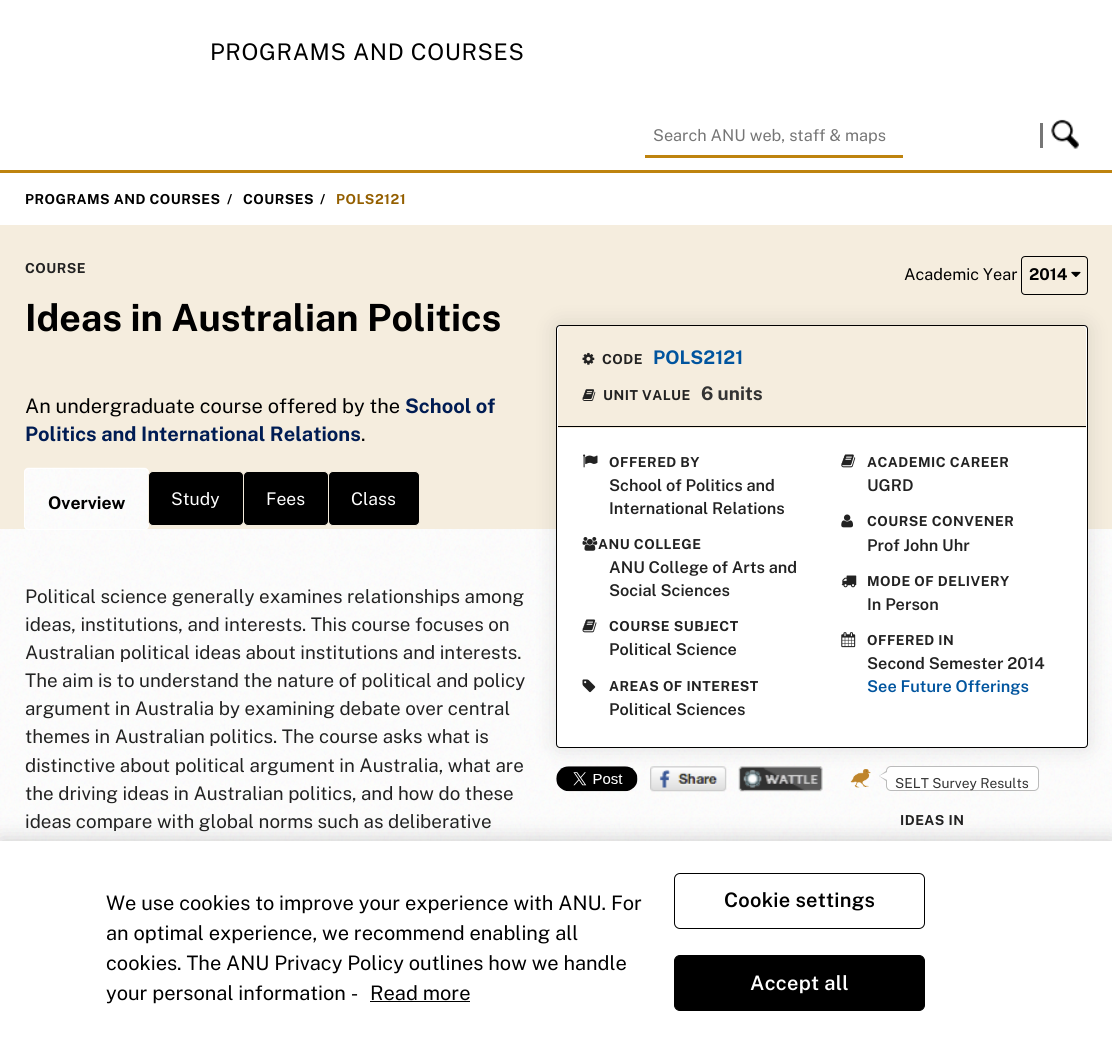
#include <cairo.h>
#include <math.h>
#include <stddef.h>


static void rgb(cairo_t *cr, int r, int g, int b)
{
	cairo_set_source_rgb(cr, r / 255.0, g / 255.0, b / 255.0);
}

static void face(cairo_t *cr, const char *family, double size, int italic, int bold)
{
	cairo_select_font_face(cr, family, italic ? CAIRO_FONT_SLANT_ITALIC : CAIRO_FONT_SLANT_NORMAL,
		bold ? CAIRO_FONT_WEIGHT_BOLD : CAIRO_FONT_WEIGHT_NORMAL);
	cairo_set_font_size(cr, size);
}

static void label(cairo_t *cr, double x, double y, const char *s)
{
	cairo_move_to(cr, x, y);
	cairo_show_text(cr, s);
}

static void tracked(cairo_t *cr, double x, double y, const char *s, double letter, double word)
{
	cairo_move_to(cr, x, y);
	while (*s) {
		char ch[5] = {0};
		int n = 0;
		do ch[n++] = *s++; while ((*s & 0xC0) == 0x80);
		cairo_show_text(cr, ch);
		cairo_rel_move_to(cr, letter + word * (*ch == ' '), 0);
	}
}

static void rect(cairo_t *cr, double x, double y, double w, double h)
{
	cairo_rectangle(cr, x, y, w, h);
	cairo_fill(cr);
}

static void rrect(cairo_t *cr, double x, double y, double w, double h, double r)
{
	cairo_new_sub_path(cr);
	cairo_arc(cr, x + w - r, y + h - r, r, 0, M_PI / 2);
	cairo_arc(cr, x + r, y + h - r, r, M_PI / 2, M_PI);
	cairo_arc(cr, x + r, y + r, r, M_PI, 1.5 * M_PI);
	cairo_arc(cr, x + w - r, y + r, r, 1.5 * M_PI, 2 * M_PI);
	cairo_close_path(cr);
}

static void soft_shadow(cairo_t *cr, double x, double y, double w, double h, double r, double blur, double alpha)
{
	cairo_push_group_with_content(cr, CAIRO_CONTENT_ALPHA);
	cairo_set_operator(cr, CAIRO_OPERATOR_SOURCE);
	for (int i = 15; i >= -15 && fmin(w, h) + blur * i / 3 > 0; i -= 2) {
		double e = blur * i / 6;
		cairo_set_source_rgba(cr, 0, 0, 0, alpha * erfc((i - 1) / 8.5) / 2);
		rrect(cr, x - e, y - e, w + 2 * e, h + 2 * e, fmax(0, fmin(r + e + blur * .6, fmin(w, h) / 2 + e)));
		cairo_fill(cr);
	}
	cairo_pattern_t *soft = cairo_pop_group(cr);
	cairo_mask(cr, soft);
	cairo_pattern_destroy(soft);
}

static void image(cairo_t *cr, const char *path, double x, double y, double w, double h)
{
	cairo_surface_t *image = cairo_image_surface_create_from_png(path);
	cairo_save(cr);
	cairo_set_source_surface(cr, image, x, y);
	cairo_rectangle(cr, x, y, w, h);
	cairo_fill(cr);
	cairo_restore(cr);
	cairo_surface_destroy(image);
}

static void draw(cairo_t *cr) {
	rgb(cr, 255, 255, 255);
	cairo_paint(cr);
	rgb(cr, 190, 131, 14);
	rect(cr, 0, 170, 1112, 3);
	face(cr, "Public Sans", 22.9, 0, 0);
	rgb(cr, 0, 0, 0);
	tracked(cr, 210, 60, "PROGRAMS AND COURSES", 0.7, 0);
	rgb(cr, 190, 131, 14);
	rect(cr, 645, 155, 258, 3);
	face(cr, "Public Sans", 16.25, 0, 0);
	rgb(cr, 117, 117, 117);
	label(cr, 653, 141, "Search ANU web, staff & maps");
	rgb(cr, 118, 118, 118);
	rect(cr, 1040, 123, 3, 25);
	image(cr, "image0.png", 1051, 119, 28, 30);
	face(cr, "Public Sans", 13.75, 0, 1);
	rgb(cr, 0, 0, 0);
	tracked(cr, 25, 204, "PROGRAMS AND COURSES", 0.5, 0);
	tracked(cr, 227, 204, "/", 0.5, 0);
	tracked(cr, 243, 204, "COURSES", 0.5, 0);
	tracked(cr, 320, 204, "/", 0.5, 0);
	rgb(cr, 148, 95, 0);
	tracked(cr, 336, 204, "POLS2121", 0.5, 0);
	rgb(cr, 245, 237, 222);
	rect(cr, 0, 225, 1112, 304);
	rgb(cr, 34, 34, 34);
	tracked(cr, 25, 273, "COURSE", 0.5, 0);
	face(cr, "Public Sans", 37.5, 0, 1);
	rgb(cr, 0, 0, 0);
	label(cr, 25, 331, "Ideas in Australian Politics");
	face(cr, "Public Sans", 20, 0, 0);
	label(cr, 25, 413, "An undergraduate course offered by the");
	face(cr, "Public Sans", 20, 0, 1);
	rgb(cr, 0, 28, 83);
	label(cr, 405, 413, "School of");
	label(cr, 25, 441, "Politics and International Relations");
	face(cr, "Public Sans", 20, 0, 0);
	rgb(cr, 0, 0, 0);
	label(cr, 361, 441, ".");
	face(cr, "Public Sans", 16.25, 0, 0);
	label(cr, 904, 280, "Academic Year");
	rrect(cr, 1021.5, 256.5, 66, 38, 3.5);
	cairo_set_line_width(cr, 1);
	cairo_stroke(cr);
	face(cr, "Public Sans", 16.25, 0, 1);
	label(cr, 1029, 280, "2014");
	image(cr, "image1.png", 1071, 271, 10, 6);
	image(cr, "image3.png", 0, 529, 1112, 312);
	image(cr, "image2.png", 24, 467, 125, 63);
	rrect(cr, 24.5, 468.5, 124, 61, 4.5);
	rgb(cr, 255, 255, 255);
	cairo_stroke(cr);
	face(cr, "Public Sans", 17.5, 0, 1);
	rgb(cr, 0, 0, 0);
	label(cr, 48, 509, "Overview");
	rrect(cr, 148.5, 471.5, 95, 54, 4.5);
	cairo_fill_preserve(cr);
	rgb(cr, 245, 237, 222);
	cairo_stroke(cr);
	face(cr, "Public Sans", 17.5, 0, 0);
	rgb(cr, 255, 255, 255);
	label(cr, 171, 505, "Study");
	rgb(cr, 0, 0, 0);
	rrect(cr, 243.5, 471.5, 85, 54, 4.5);
	cairo_fill_preserve(cr);
	rgb(cr, 245, 237, 222);
	cairo_stroke(cr);
	rgb(cr, 255, 255, 255);
	label(cr, 266, 505, "Fees");
	rgb(cr, 0, 0, 0);
	rrect(cr, 328.5, 471.5, 91, 54, 4.5);
	cairo_fill_preserve(cr);
	rgb(cr, 245, 237, 222);
	cairo_stroke(cr);
	rgb(cr, 255, 255, 255);
	label(cr, 351, 505, "Class");
	face(cr, "Public Sans", 18.75, 0, 0);
	rgb(cr, 34, 34, 34);
	label(cr, 25, 603, "Political science generally examines relationships among");
	label(cr, 25, 631, "ideas, institutions, and interests. This course focuses on");
	label(cr, 25, 659, "Australian political ideas about institutions and interests.");
	label(cr, 25, 687, "The aim is to understand the nature of political and policy");
	label(cr, 25, 715, "argument in Australia by examining debate over central");
	label(cr, 25, 743, "themes in Australian politics. The course asks what is");
	label(cr, 25, 772, "distinctive about political argument in Australia, what are");
	label(cr, 25, 800, "the driving ideas in Australian politics, and how do these");
	label(cr, 25, 828, "ideas compare with global norms such as deliberative");
	rgb(cr, 0, 0, 0);
	soft_shadow(cr, 554, 323, 536, 427, 6, 10, 0.1);
	rgb(cr, 255, 255, 255);
	rrect(cr, 556.5, 325.5, 531, 422, 3.5);
	cairo_fill_preserve(cr);
	rgb(cr, 0, 0, 0);
	cairo_stroke(cr);
	rgb(cr, 245, 237, 222);
	cairo_new_path(cr);
	cairo_move_to(cr, 562, 326);
	cairo_line_to(cr, 1082, 326);
	cairo_curve_to(cr, 1084, 326, 1086, 328, 1086, 330);
	cairo_line_to(cr, 1086, 428);
	cairo_line_to(cr, 558, 428);
	cairo_line_to(cr, 558, 330);
	cairo_curve_to(cr, 558, 328, 560, 326, 562, 326);
	cairo_close_path(cr);
	cairo_fill(cr);
	rgb(cr, 0, 0, 0);
	rect(cr, 558, 426, 528, 1);
	image(cr, "image4.png", 582, 352, 13, 13);
	face(cr, "Public Sans", 13.75, 0, 1);
	rgb(cr, 34, 34, 34);
	tracked(cr, 602, 364, "CODE", 0.5, 0);
	face(cr, "Public Sans", 18.75, 0, 1);
	rgb(cr, 0, 84, 158);
	label(cr, 653, 364, "POLS2121");
	image(cr, "image5.png", 582, 389, 14, 12);
	face(cr, "Public Sans", 13.75, 0, 1);
	rgb(cr, 34, 34, 34);
	tracked(cr, 603, 400, "UNIT VALUE", 0.5, 0);
	face(cr, "Public Sans", 18.75, 0, 1);
	rgb(cr, 51, 51, 51);
	label(cr, 701, 400, "6 units");
	image(cr, "image6.png", 583, 454, 15, 14);
	face(cr, "Public Sans", 13.75, 0, 1);
	rgb(cr, 34, 34, 34);
	tracked(cr, 609, 467, "OFFERED BY", 0.5, 0);
	face(cr, "Public Sans SemiBold", 16.25, 0, 0);
	label(cr, 609, 491, "School of Politics and");
	label(cr, 609, 514, "International Relations");
	image(cr, "image7.png", 582, 537, 16, 14);
	face(cr, "Public Sans", 13.75, 0, 1);
	tracked(cr, 598, 549, "ANU COLLEGE", 0.5, 0);
	face(cr, "Public Sans SemiBold", 16.25, 0, 0);
	label(cr, 609, 573, "ANU College of Arts and");
	label(cr, 609, 596, "Social Sciences");
	image(cr, "image8.png", 582, 619, 15, 14);
	face(cr, "Public Sans", 13.75, 0, 1);
	tracked(cr, 609, 631, "COURSE SUBJECT", 0.5, 0);
	face(cr, "Public Sans SemiBold", 16.25, 0, 0);
	label(cr, 609, 655, "Political Science");
	image(cr, "image9.png", 582, 679, 14, 14);
	face(cr, "Public Sans", 13.75, 0, 1);
	tracked(cr, 609, 691, "AREAS OF INTEREST", 0.5, 0);
	face(cr, "Public Sans SemiBold", 16.25, 0, 0);
	label(cr, 609, 715, "Political Sciences");
	image(cr, "image10.png", 841, 454, 15, 14);
	face(cr, "Public Sans", 13.75, 0, 1);
	tracked(cr, 867, 467, "ACADEMIC CAREER", 0.5, 0);
	face(cr, "Public Sans SemiBold", 16.25, 0, 0);
	label(cr, 867, 491, "UGRD");
	image(cr, "image11.png", 841, 514, 12, 14);
	face(cr, "Public Sans", 13.75, 0, 1);
	tracked(cr, 867, 526, "COURSE CONVENER", 0.5, 0);
	face(cr, "Public Sans SemiBold", 16.25, 0, 0);
	label(cr, 867, 551, "Prof John Uhr");
	image(cr, "image12.png", 841, 575, 16, 13);
	face(cr, "Public Sans", 13.75, 0, 1);
	tracked(cr, 867, 586, "MODE OF DELIVERY", 0.5, 0);
	face(cr, "Public Sans SemiBold", 16.25, 0, 0);
	label(cr, 867, 610, "In Person");
	image(cr, "image13.png", 841, 632, 15, 16);
	face(cr, "Public Sans", 13.75, 0, 1);
	tracked(cr, 867, 645, "OFFERED IN", 0.5, 0);
	face(cr, "Public Sans SemiBold", 16.25, 0, 0);
	label(cr, 867, 669, "Second Semester 2014");
	rgb(cr, 0, 84, 158);
	label(cr, 867, 692, "See Future Offerings");
	image(cr, "image14.png", 556, 766, 82, 26);
	image(cr, "image15.png", 650, 766, 77, 26);
	image(cr, "image16.png", 738, 766, 85, 26);
	image(cr, "image17.png", 850, 769, 21, 19);
	rgb(cr, 255, 255, 255);
	rrect(cr, 886.5, 766.5, 152, 24, 4.5);
	cairo_fill_preserve(cr);
	rgb(cr, 187, 187, 187);
	cairo_stroke(cr);
	cairo_new_path(cr);
	cairo_move_to(cr, 886, 771);
	cairo_line_to(cr, 886, 781);
	cairo_line_to(cr, 879, 776);
	cairo_close_path(cr);
	cairo_fill(cr);
	rgb(cr, 255, 255, 255);
	cairo_new_path(cr);
	cairo_move_to(cr, 889, 771);
	cairo_line_to(cr, 889, 781);
	cairo_line_to(cr, 879, 776);
	cairo_close_path(cr);
	cairo_fill(cr);
	face(cr, "Public Sans", 13.75, 0, 0);
	rgb(cr, 51, 51, 51);
	label(cr, 895, 788, "SELT Survey Results");
	face(cr, "Public Sans", 13.75, 0, 1);
	rgb(cr, 34, 34, 34);
	tracked(cr, 900, 825, "IDEAS IN", 0.5, 0);
	rgb(cr, 0, 0, 0);
	soft_shadow(cr, 0, 841, 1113, 215, 0, 11, 0.2);
	rgb(cr, 255, 255, 255);
	rect(cr, 0, 841, 1112, 215);
	face(cr, "Public Sans", 20, 0, 0);
	rgb(cr, 0, 0, 0);
	label(cr, 106, 910, "We use cookies to improve your experience with ANU. For");
	label(cr, 106, 940, "an optimal experience, we recommend enabling all");
	label(cr, 106, 970, "cookies. The ANU Privacy Policy outlines how we handle");
	label(cr, 106, 1000, "your personal information -");
	label(cr, 370, 1000, "Read more");
	rect(cr, 370, 1001, 100, 1);
	rrect(cr, 674.5, 873.5, 250, 55, 5.5);
	cairo_stroke(cr);
	face(cr, "Public Sans SemiBold", 20, 0, 0);
	tracked(cr, 724, 907, "Cookie settings", 0.25, 0);
	rrect(cr, 674.5, 955.5, 250, 55, 5.5);
	cairo_fill_preserve(cr);
	cairo_stroke(cr);
	rgb(cr, 255, 255, 255);
	tracked(cr, 750, 990, "Accept all", 0.25, 0);
}

int main(void) {
	cairo_surface_t *surface = cairo_image_surface_create(CAIRO_FORMAT_RGB24, 1112, 1056);
	cairo_t *cr = cairo_create(surface);
	cairo_font_options_t *options = cairo_font_options_create();
	cairo_font_options_set_hint_metrics(options, CAIRO_HINT_METRICS_OFF);
	cairo_font_options_set_hint_style(options, CAIRO_HINT_STYLE_NONE);
	cairo_set_font_options(cr, options);
	cairo_set_miter_limit(cr, 4);
	draw(cr);
	cairo_surface_write_to_png(surface, "render.png");
	cairo_font_options_destroy(options);
	cairo_destroy(cr);
	cairo_surface_destroy(surface);
	return 0;
}
